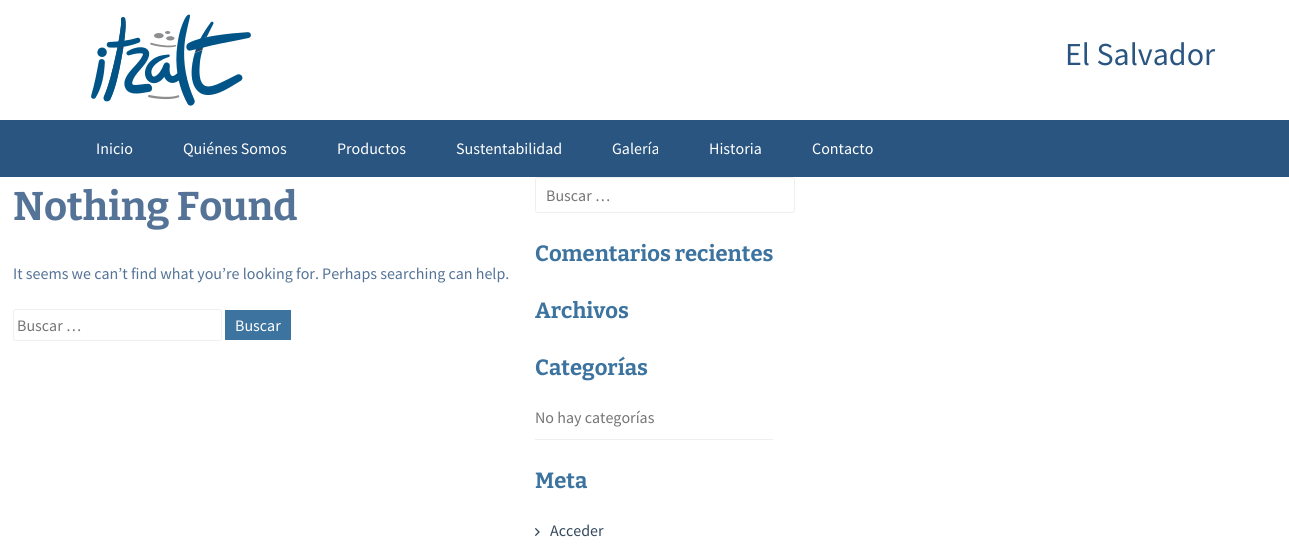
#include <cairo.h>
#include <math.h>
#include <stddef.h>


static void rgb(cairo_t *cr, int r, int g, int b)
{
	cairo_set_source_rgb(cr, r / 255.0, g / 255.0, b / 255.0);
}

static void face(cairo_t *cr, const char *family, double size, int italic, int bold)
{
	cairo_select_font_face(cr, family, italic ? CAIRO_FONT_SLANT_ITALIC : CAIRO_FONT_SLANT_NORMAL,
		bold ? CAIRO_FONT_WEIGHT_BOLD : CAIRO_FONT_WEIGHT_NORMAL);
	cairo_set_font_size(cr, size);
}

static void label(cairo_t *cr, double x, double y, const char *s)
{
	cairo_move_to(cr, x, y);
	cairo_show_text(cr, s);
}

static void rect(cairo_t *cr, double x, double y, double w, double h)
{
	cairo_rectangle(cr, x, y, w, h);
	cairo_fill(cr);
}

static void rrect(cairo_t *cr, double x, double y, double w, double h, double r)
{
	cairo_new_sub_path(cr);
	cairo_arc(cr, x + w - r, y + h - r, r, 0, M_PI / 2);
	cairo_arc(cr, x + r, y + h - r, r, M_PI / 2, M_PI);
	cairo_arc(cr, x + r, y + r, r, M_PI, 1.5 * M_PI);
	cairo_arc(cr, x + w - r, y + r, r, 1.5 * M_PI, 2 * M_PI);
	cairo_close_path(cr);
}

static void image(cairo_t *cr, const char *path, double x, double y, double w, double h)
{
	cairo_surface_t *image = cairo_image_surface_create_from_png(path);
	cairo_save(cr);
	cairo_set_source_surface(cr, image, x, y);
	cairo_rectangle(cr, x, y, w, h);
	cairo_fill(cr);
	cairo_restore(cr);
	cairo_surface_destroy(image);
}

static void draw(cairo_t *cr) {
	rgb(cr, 255, 255, 255);
	cairo_paint(cr);
	image(cr, "image0.png", 91, 14, 160, 92);
	face(cr, "Source Sans Pro", 32, 0, 0);
	rgb(cr, 41, 85, 128);
	label(cr, 1065, 65, "El Salvador");
	rect(cr, 0, 120, 1289, 57);
	face(cr, "Source Sans Pro", 16, 0, 0);
	rgb(cr, 255, 255, 255);
	label(cr, 96, 154, "Inicio");
	label(cr, 183, 154, "Quiénes Somos");
	label(cr, 337, 154, "Productos");
	label(cr, 456, 154, "Sustentabilidad");
	label(cr, 612, 154, "Galería");
	label(cr, 709, 154, "Historia");
	label(cr, 812, 154, "Contacto");
	face(cr, "Bitter", 40, 0, 1);
	rgb(cr, 84, 115, 151);
	label(cr, 13, 220, "Nothing Found");
	face(cr, "Source Sans Pro", 16, 0, 0);
	label(cr, 13, 279, "It seems we can’t find what you’re looking for. Perhaps searching can help.");
	rrect(cr, 13.5, 309.5, 208, 31, 2.5);
	rgb(cr, 236, 240, 241);
	cairo_set_line_width(cr, 1);
	cairo_stroke(cr);
	rgb(cr, 117, 117, 117);
	label(cr, 17, 331, "Buscar …");
	rgb(cr, 61, 115, 159);
	rect(cr, 225, 310, 66, 30);
	rgb(cr, 255, 255, 255);
	label(cr, 235, 331, "Buscar");
	rrect(cr, 535.5, 177.5, 259, 35, 2.5);
	rgb(cr, 236, 240, 241);
	cairo_stroke(cr);
	rgb(cr, 117, 117, 117);
	label(cr, 546, 201, "Buscar …");
	face(cr, "Bitter", 22, 0, 1);
	rgb(cr, 61, 115, 159);
	label(cr, 535, 261, "Comentarios recientes");
	label(cr, 535, 318, "Archivos");
	label(cr, 535, 375, "Categorías");
	rgb(cr, 236, 240, 241);
	rect(cr, 535, 439, 238, 1);
	face(cr, "Source Sans Pro", 16, 0, 0);
	rgb(cr, 117, 117, 117);
	label(cr, 535, 423, "No hay categorías");
	face(cr, "Bitter", 22, 0, 1);
	rgb(cr, 61, 115, 159);
	label(cr, 535, 488, "Meta");
	image(cr, "image1.png", 535, 528, 5, 8);
	face(cr, "Source Sans Pro", 16, 0, 0);
	rgb(cr, 52, 73, 94);
	label(cr, 550, 536, "Acceder");
}

int main(void) {
	cairo_surface_t *surface = cairo_image_surface_create(CAIRO_FORMAT_RGB24, 1289, 545);
	cairo_t *cr = cairo_create(surface);
	cairo_font_options_t *options = cairo_font_options_create();
	cairo_font_options_set_hint_metrics(options, CAIRO_HINT_METRICS_OFF);
	cairo_font_options_set_hint_style(options, CAIRO_HINT_STYLE_NONE);
	cairo_set_font_options(cr, options);
	cairo_set_miter_limit(cr, 4);
	draw(cr);
	cairo_surface_write_to_png(surface, "render.png");
	cairo_font_options_destroy(options);
	cairo_destroy(cr);
	cairo_surface_destroy(surface);
	return 0;
}
